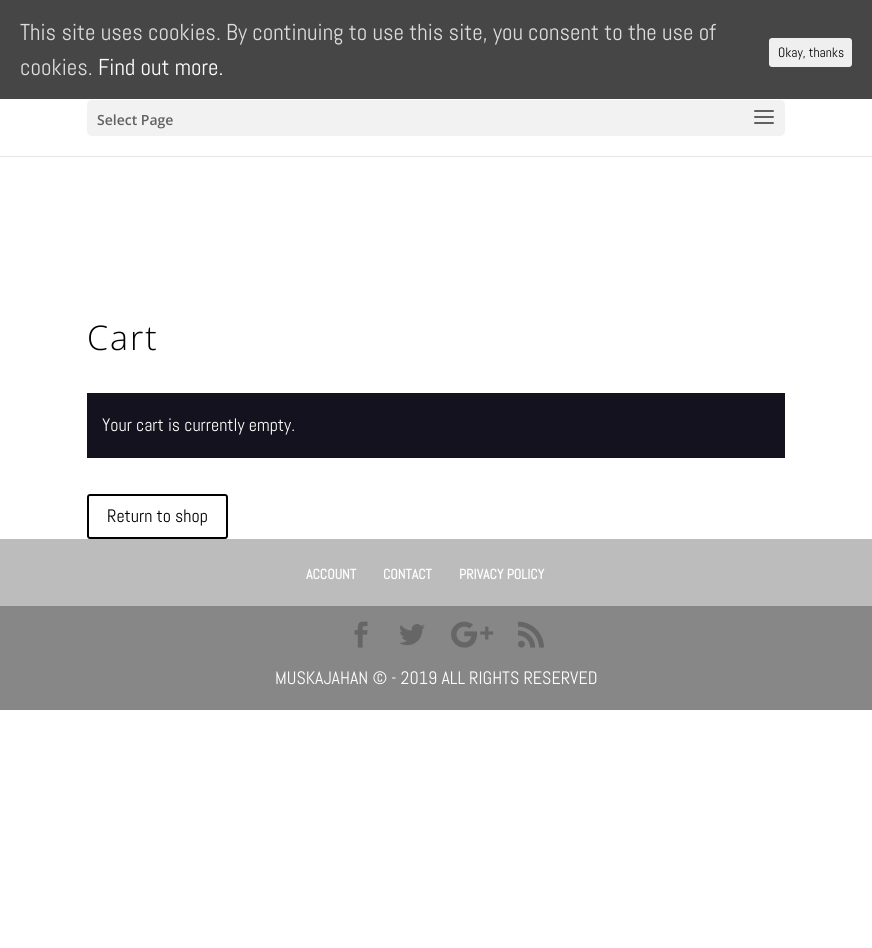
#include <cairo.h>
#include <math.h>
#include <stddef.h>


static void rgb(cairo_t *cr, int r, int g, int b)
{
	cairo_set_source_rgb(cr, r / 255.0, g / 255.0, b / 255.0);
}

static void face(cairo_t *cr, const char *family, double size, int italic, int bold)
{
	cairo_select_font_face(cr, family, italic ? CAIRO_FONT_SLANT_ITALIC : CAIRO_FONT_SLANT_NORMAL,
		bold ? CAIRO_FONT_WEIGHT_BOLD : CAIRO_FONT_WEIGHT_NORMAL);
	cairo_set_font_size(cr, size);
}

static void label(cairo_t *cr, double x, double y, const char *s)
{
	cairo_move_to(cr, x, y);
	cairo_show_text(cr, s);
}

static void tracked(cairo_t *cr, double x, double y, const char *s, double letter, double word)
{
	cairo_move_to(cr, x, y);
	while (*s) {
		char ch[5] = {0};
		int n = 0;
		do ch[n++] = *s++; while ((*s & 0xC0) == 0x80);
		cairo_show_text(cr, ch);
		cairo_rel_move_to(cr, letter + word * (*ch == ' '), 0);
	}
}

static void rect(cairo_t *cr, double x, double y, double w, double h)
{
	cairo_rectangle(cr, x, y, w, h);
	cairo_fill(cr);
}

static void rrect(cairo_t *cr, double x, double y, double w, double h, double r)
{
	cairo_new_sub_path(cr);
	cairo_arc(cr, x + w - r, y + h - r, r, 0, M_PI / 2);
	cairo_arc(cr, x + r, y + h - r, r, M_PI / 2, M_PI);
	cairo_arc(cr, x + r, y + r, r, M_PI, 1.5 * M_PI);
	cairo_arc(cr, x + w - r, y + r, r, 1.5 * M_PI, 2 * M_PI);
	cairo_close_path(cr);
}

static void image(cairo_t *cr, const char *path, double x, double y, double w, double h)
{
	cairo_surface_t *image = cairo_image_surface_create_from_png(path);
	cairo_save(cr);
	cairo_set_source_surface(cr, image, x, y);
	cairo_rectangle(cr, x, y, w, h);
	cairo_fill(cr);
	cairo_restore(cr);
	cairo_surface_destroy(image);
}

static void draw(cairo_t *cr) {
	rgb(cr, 255, 255, 255);
	cairo_paint(cr);
	rgb(cr, 70, 70, 70);
	rect(cr, 0, 0, 872, 99);
	face(cr, "Abel", 23, 0, 0);
	rgb(cr, 221, 221, 221);
	label(cr, 20, 40, "This site uses cookies. By continuing to use this site, you consent to the use of");
	label(cr, 20, 75, "cookies.");
	rgb(cr, 255, 255, 255);
	label(cr, 98, 75, "Find out more.");
	rgb(cr, 239, 239, 239);
	rrect(cr, 769, 38, 83, 29, 3);
	cairo_fill(cr);
	face(cr, "Abel", 13.5, 0, 0);
	rgb(cr, 0, 0, 0);
	label(cr, 778, 57, "Okay, thanks");
	rgb(cr, 230, 230, 230);
	rect(cr, 0, 156, 872, 1);
	rgb(cr, 242, 242, 242);
	rrect(cr, 87, 100, 698, 36, 5);
	cairo_fill(cr);
	face(cr, "Open Sans SemiBold", 14, 0, 0);
	rgb(cr, 97, 97, 97);
	label(cr, 97, 125, "Select Page");
	image(cr, "image0.png", 754, 110, 20, 14);
	face(cr, "Open Sans Light", 34, 0, 0);
	rgb(cr, 0, 0, 0);
	tracked(cr, 87, 350, "Cart", 2, 0);
	rgb(cr, 19, 18, 30);
	rect(cr, 87, 393, 698, 65);
	face(cr, "Abel", 18, 0, 0);
	rgb(cr, 255, 255, 255);
	label(cr, 102, 431, "Your cart is currently empty.");
	rrect(cr, 88, 495, 139, 43, 2);
	rgb(cr, 0, 0, 0);
	cairo_stroke(cr);
	label(cr, 107, 522, "Return to shop");
	rgb(cr, 188, 188, 188);
	rect(cr, 0, 539, 872, 67);
	face(cr, "Abel", 14, 0, 1);
	rgb(cr, 255, 255, 255);
	label(cr, 306, 579, "ACCOUNT");
	label(cr, 383, 579, "CONTACT");
	label(cr, 459, 579, "PRIVACY POLICY");
	rgb(cr, 135, 135, 135);
	rect(cr, 0, 606, 872, 104);
	image(cr, "image1.png", 354, 621, 14, 27);
	image(cr, "image2.png", 399, 624, 26, 22);
	image(cr, "image3.png", 451, 621, 43, 27);
	image(cr, "image4.png", 518, 621, 26, 27);
	face(cr, "Abel", 18, 0, 0);
	rgb(cr, 255, 255, 255);
	label(cr, 275, 684, "MUSKAJAHAN © - 2019 ALL RIGHTS RESERVED");
}

int main(void) {
	cairo_surface_t *surface = cairo_image_surface_create(CAIRO_FORMAT_RGB24, 872, 948);
	cairo_t *cr = cairo_create(surface);
	cairo_font_options_t *options = cairo_font_options_create();
	cairo_font_options_set_hint_metrics(options, CAIRO_HINT_METRICS_OFF);
	cairo_font_options_set_hint_style(options, CAIRO_HINT_STYLE_NONE);
	cairo_set_font_options(cr, options);
	cairo_set_miter_limit(cr, 4);
	draw(cr);
	cairo_surface_write_to_png(surface, "render.png");
	cairo_font_options_destroy(options);
	cairo_destroy(cr);
	cairo_surface_destroy(surface);
	return 0;
}
